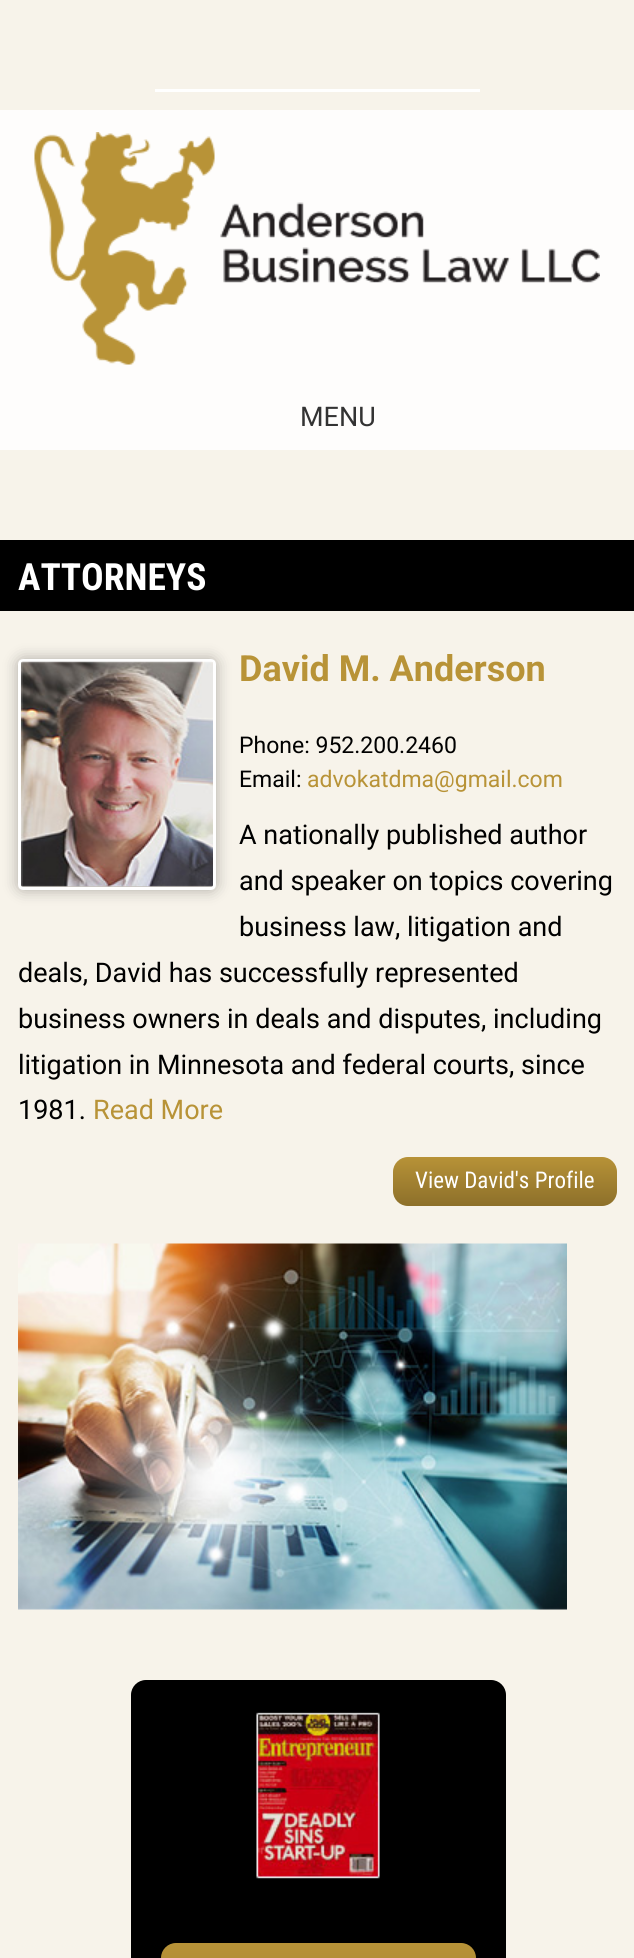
#include <cairo.h>
#include <math.h>
#include <stddef.h>


static void rgb(cairo_t *cr, int r, int g, int b)
{
	cairo_set_source_rgb(cr, r / 255.0, g / 255.0, b / 255.0);
}

static void face(cairo_t *cr, const char *family, double size, int italic, int bold)
{
	cairo_select_font_face(cr, family, italic ? CAIRO_FONT_SLANT_ITALIC : CAIRO_FONT_SLANT_NORMAL,
		bold ? CAIRO_FONT_WEIGHT_BOLD : CAIRO_FONT_WEIGHT_NORMAL);
	cairo_set_font_size(cr, size);
}

static void label(cairo_t *cr, double x, double y, const char *s)
{
	cairo_move_to(cr, x, y);
	cairo_show_text(cr, s);
}

static void rect(cairo_t *cr, double x, double y, double w, double h)
{
	cairo_rectangle(cr, x, y, w, h);
	cairo_fill(cr);
}

static void rrect(cairo_t *cr, double x, double y, double w, double h, double r)
{
	cairo_new_sub_path(cr);
	cairo_arc(cr, x + w - r, y + h - r, r, 0, M_PI / 2);
	cairo_arc(cr, x + r, y + h - r, r, M_PI / 2, M_PI);
	cairo_arc(cr, x + r, y + r, r, M_PI, 1.5 * M_PI);
	cairo_arc(cr, x + w - r, y + r, r, 1.5 * M_PI, 2 * M_PI);
	cairo_close_path(cr);
}

static void soft_shadow(cairo_t *cr, double x, double y, double w, double h, double r, double blur, double alpha)
{
	cairo_push_group_with_content(cr, CAIRO_CONTENT_ALPHA);
	cairo_set_operator(cr, CAIRO_OPERATOR_SOURCE);
	for (int i = 15; i >= -15 && fmin(w, h) + blur * i / 3 > 0; i -= 2) {
		double e = blur * i / 6;
		cairo_set_source_rgba(cr, 0, 0, 0, alpha * erfc((i - 1) / 8.5) / 2);
		rrect(cr, x - e, y - e, w + 2 * e, h + 2 * e, fmax(0, fmin(r + e + blur * .6, fmin(w, h) / 2 + e)));
		cairo_fill(cr);
	}
	cairo_pattern_t *soft = cairo_pop_group(cr);
	cairo_mask(cr, soft);
	cairo_pattern_destroy(soft);
}

static void image(cairo_t *cr, const char *path, double x, double y, double w, double h)
{
	cairo_surface_t *image = cairo_image_surface_create_from_png(path);
	cairo_save(cr);
	cairo_set_source_surface(cr, image, x, y);
	cairo_rectangle(cr, x, y, w, h);
	cairo_fill(cr);
	cairo_restore(cr);
	cairo_surface_destroy(image);
}

static void draw(cairo_t *cr) {
	cairo_pattern_t *gradient;
	rgb(cr, 247, 243, 234);
	cairo_paint(cr);
	rgb(cr, 255, 255, 255);
	rect(cr, 155, 89, 325, 3);
	rgb(cr, 254, 253, 252);
	rect(cr, 0, 110, 634, 340);
	image(cr, "image0.png", 34, 132, 566, 233);
	face(cr, "Roboto", 27, 0, 0);
	rgb(cr, 51, 51, 51);
	label(cr, 300, 426, "MENU");
	rgb(cr, 0, 0, 0);
	rect(cr, 0, 540, 634, 71);
	face(cr, "Roboto Condensed", 37.5, 0, 1);
	rgb(cr, 255, 255, 255);
	label(cr, 18, 590, "ATTORNEYS");
	rgb(cr, 0, 0, 0);
	soft_shadow(cr, 18, 659, 198, 231, 5, 7.5, 0.3);
	rrect(cr, 19.5, 660.5, 195, 228, 3.5);
	rgb(cr, 255, 255, 255);
	cairo_set_line_width(cr, 3);
	cairo_stroke(cr);
	image(cr, "image1.png", 21, 661, 192, 226);
	face(cr, "Roboto", 36, 0, 1);
	rgb(cr, 184, 147, 55);
	label(cr, 239, 681, "David M. Anderson");
	face(cr, "Roboto", 23, 0, 0);
	rgb(cr, 0, 0, 0);
	label(cr, 239, 753, "Phone: 952.200.2460");
	label(cr, 239, 787, "Email:");
	rgb(cr, 184, 147, 55);
	label(cr, 307, 787, "advokatdma@gmail.com");
	face(cr, "Roboto", 27, 0, 0);
	rgb(cr, 0, 0, 0);
	label(cr, 239, 844, "A nationally published author");
	label(cr, 239, 890, "and speaker on topics covering");
	label(cr, 239, 936, "business law, litigation and");
	label(cr, 18, 982, "deals, David has successfully represented");
	label(cr, 18, 1028, "business owners in deals and disputes, including");
	label(cr, 18, 1074, "litigation in Minnesota and federal courts, since");
	label(cr, 18, 1119, "1981.");
	rgb(cr, 184, 147, 55);
	label(cr, 93, 1119, "Read More");
	gradient = cairo_pattern_create_linear(505, 1157, 505, 1206);
	cairo_pattern_add_color_stop_rgba(gradient, 0, 0.718, 0.573, 0.216, 1);
	cairo_pattern_add_color_stop_rgba(gradient, 1, 0.553, 0.439, 0.165, 1);
	cairo_set_source(cr, gradient);
	cairo_pattern_destroy(gradient);
	rrect(cr, 393, 1157, 224, 49, 15);
	cairo_fill(cr);
	face(cr, "Roboto Condensed", 23, 0, 0);
	rgb(cr, 255, 255, 255);
	label(cr, 415, 1188, "View David's Profile");
	image(cr, "image2.png", 18, 1243, 549, 367);
	rgb(cr, 0, 0, 0);
	rrect(cr, 131, 1680, 375, 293, 15);
	cairo_fill(cr);
	image(cr, "image3.png", 256, 1712, 124, 167);
	gradient = cairo_pattern_create_linear(318, 1943, 318, 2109);
	cairo_pattern_add_color_stop_rgba(gradient, 0, 0.718, 0.573, 0.216, 1);
	cairo_pattern_add_color_stop_rgba(gradient, 1, 0.553, 0.439, 0.165, 1);
	cairo_set_source(cr, gradient);
	cairo_pattern_destroy(gradient);
	rrect(cr, 161, 1943, 315, 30, 15);
	cairo_fill(cr);
}

int main(void) {
	cairo_surface_t *surface = cairo_image_surface_create(CAIRO_FORMAT_RGB24, 634, 1958);
	cairo_t *cr = cairo_create(surface);
	cairo_font_options_t *options = cairo_font_options_create();
	cairo_font_options_set_hint_metrics(options, CAIRO_HINT_METRICS_OFF);
	cairo_font_options_set_hint_style(options, CAIRO_HINT_STYLE_NONE);
	cairo_set_font_options(cr, options);
	cairo_set_miter_limit(cr, 4);
	draw(cr);
	cairo_surface_write_to_png(surface, "render.png");
	cairo_font_options_destroy(options);
	cairo_destroy(cr);
	cairo_surface_destroy(surface);
	return 0;
}
